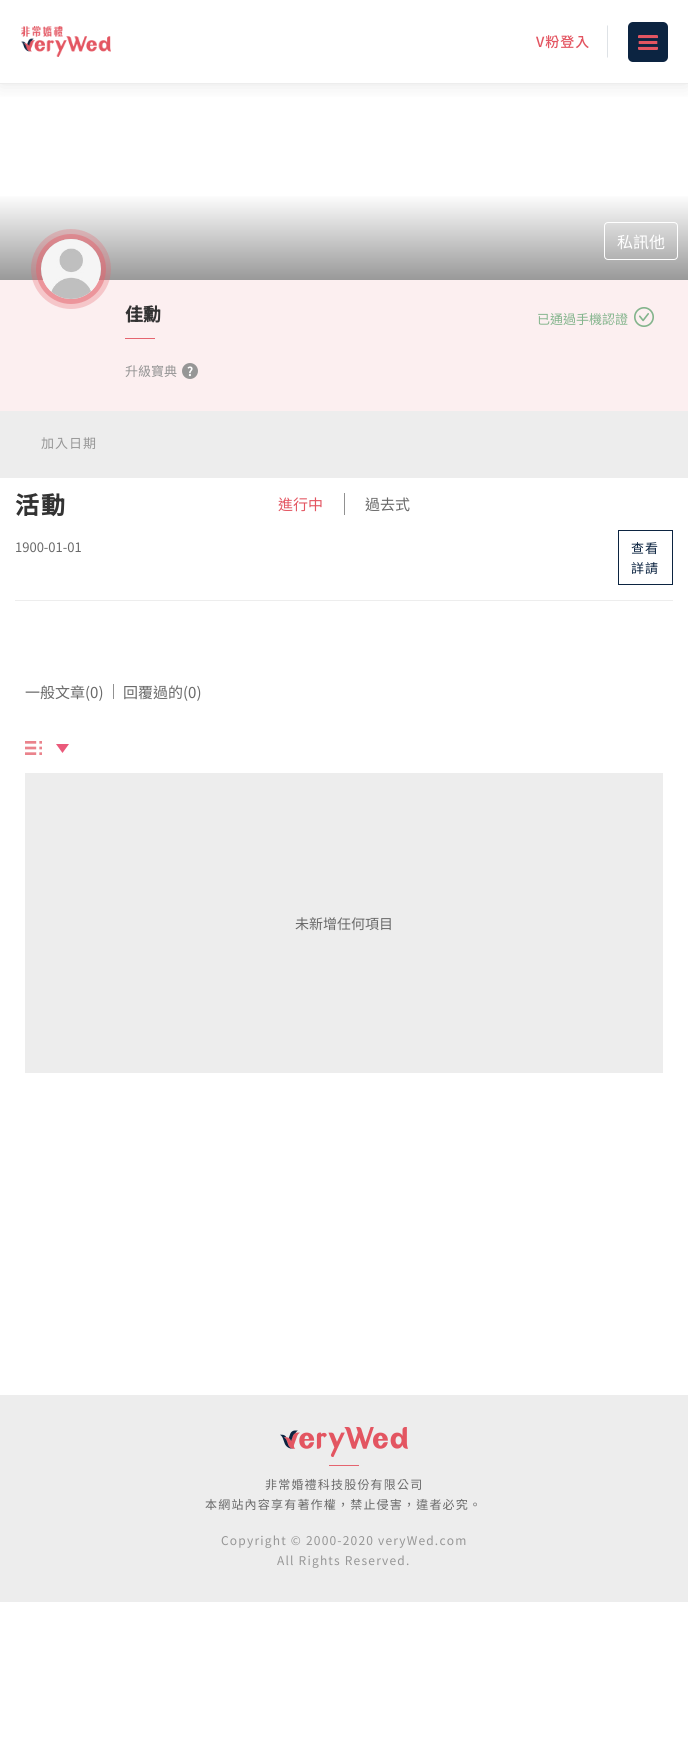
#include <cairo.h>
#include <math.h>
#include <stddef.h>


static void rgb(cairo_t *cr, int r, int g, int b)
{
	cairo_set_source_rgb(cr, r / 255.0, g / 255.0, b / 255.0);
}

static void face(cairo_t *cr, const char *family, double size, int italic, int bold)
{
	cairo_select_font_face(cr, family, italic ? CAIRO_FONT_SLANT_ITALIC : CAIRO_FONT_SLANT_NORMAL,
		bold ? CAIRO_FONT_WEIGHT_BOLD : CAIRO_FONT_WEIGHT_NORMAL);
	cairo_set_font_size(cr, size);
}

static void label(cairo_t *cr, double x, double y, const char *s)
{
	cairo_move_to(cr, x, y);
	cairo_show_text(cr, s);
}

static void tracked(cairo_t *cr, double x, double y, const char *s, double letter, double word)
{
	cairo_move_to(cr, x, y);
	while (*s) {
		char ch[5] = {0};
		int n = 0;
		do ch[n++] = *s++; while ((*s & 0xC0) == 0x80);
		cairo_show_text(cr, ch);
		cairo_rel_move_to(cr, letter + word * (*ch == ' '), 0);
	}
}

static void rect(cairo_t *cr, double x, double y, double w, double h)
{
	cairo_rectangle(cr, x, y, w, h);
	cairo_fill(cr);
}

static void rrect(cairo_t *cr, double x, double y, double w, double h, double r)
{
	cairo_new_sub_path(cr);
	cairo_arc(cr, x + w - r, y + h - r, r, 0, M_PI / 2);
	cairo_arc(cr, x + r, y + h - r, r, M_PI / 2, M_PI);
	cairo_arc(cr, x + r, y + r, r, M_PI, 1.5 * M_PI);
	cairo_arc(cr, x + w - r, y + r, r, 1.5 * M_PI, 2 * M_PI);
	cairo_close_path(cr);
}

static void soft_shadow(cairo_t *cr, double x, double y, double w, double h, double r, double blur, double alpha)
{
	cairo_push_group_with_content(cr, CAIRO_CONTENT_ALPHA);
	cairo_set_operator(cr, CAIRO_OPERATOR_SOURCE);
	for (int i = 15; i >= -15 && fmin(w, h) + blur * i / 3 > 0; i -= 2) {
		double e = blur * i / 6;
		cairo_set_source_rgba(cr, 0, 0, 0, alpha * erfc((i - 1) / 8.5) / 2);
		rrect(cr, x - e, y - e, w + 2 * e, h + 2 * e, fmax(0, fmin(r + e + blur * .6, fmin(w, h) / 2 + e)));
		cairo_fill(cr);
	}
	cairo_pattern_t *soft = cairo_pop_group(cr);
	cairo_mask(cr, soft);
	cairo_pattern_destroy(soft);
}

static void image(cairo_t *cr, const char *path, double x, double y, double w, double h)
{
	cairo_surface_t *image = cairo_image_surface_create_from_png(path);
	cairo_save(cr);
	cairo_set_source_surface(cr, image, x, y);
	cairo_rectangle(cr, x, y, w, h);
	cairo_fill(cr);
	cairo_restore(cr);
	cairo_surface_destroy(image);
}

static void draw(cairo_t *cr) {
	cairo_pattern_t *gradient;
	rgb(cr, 255, 255, 255);
	cairo_paint(cr);
	cairo_save(cr);
	cairo_rectangle(cr, 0, 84, 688, 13);
	cairo_clip(cr);
	rgb(cr, 125, 125, 125);
	soft_shadow(cr, 0, 0, 688, 84, 0, 10, 0.2);
	cairo_restore(cr);
	rgb(cr, 237, 237, 237);
	rect(cr, 0, 83, 688, 1);
	image(cr, "image0.png", 21, 26, 90, 31);
	rgb(cr, 222, 226, 230);
	cairo_new_path(cr);
	cairo_move_to(cr, 608, 25);
	cairo_line_to(cr, 608, 58);
	cairo_line_to(cr, 607, 57);
	cairo_line_to(cr, 607, 26);
	cairo_close_path(cr);
	cairo_fill(cr);
	face(cr, "Noto Sans TC Medium", 14, 0, 0);
	rgb(cr, 227, 85, 97);
	tracked(cr, 536, 47, "V粉登入", 1, 0);
	rgb(cr, 12, 36, 65);
	rrect(cr, 628, 22, 40, 40, 5);
	cairo_fill(cr);
	image(cr, "image1.png", 638, 35, 20, 15);
	gradient = cairo_pattern_create_linear(344, 190, 344, 280);
	cairo_pattern_add_color_stop_rgba(gradient, 0.03, 1, 1, 1, 1);
	cairo_pattern_add_color_stop_rgba(gradient, 0.04, 1, 1, 1, 1);
	cairo_pattern_add_color_stop_rgba(gradient, 1, 0.6, 0.6, 0.6, 1);
	cairo_set_source(cr, gradient);
	cairo_pattern_destroy(gradient);
	rect(cr, 0, 196, 688, 84);
	rrect(cr, 604.5, 222.5, 73, 37, 3.5);
	rgb(cr, 255, 255, 255);
	cairo_set_line_width(cr, 1);
	cairo_stroke(cr);
	face(cr, "Noto Sans TC", 16, 0, 0);
	label(cr, 617, 248, "私訊他");
	rgb(cr, 237, 237, 237);
	rect(cr, 0, 411, 688, 67);
	rgb(cr, 252, 239, 240);
	rect(cr, 0, 280, 688, 131);
	cairo_new_path(cr);
	cairo_arc(cr, 71, 269, 35, 0, 2 * M_PI);
	cairo_set_source_rgba(cr, 0.898, 0.392, 0.435, 0.3);
	cairo_set_line_width(cr, 10);
	cairo_stroke(cr);
	cairo_arc(cr, 71, 269, 32.5, 0, 2 * M_PI);
	cairo_set_source_rgba(cr, 0.898, 0.392, 0.435, 0.5);
	cairo_set_line_width(cr, 5);
	cairo_stroke(cr);
	image(cr, "image2.png", 41, 239, 60, 60);
	face(cr, "Noto Sans TC", 18, 0, 1);
	rgb(cr, 51, 51, 51);
	label(cr, 125, 321, "佳勳");
	rgb(cr, 229, 100, 111);
	rect(cr, 125, 338, 30, 1);
	face(cr, "Noto Sans TC", 13, 0, 0);
	rgb(cr, 150, 150, 150);
	label(cr, 125, 376, "升級寶典");
	cairo_new_path(cr);
	cairo_arc(cr, 190, 371, 8, 0, 2 * M_PI);
	cairo_fill(cr);
	face(cr, "Noto Sans TC", 12, 0, 1);
	rgb(cr, 255, 255, 255);
	label(cr, 187, 376, "?");
	face(cr, "Noto Sans TC", 13, 0, 0);
	rgb(cr, 131, 180, 140);
	label(cr, 537, 324, "已通過手機認證");
	image(cr, "image3.png", 634, 307, 20, 20);
	rgb(cr, 150, 150, 150);
	tracked(cr, 41, 448, "加入日期", 1, 0);
	face(cr, "Noto Sans TC", 24, 0, 1);
	rgb(cr, 51, 51, 51);
	tracked(cr, 15, 514, "活動", 2, 0);
	rgb(cr, 145, 145, 145);
	rect(cr, 344, 493, 1, 22);
	face(cr, "Noto Sans TC", 15, 0, 0);
	rgb(cr, 227, 85, 97);
	label(cr, 278, 510, "進行中");
	rgb(cr, 105, 105, 105);
	label(cr, 365, 510, "過去式");
	rgb(cr, 237, 237, 237);
	rect(cr, 15, 600, 658, 1);
	face(cr, "Noto Sans TC", 13, 0, 0);
	rgb(cr, 105, 105, 105);
	label(cr, 15, 552, "1900-01-01");
	cairo_rectangle(cr, 618.5, 530.5, 54, 54);
	rgb(cr, 12, 36, 65);
	cairo_set_line_width(cr, 1);
	cairo_stroke(cr);
	tracked(cr, 631, 553, "查看", 1, 0);
	tracked(cr, 631, 573, "詳請", 1, 0);
	face(cr, "Noto Sans TC", 15, 0, 0);
	rgb(cr, 105, 105, 105);
	label(cr, 25, 698, "一般文章(0)");
	rgb(cr, 145, 145, 145);
	rect(cr, 113, 684, 1, 15);
	rgb(cr, 105, 105, 105);
	label(cr, 123, 698, "回覆過的(0)");
	image(cr, "image4.png", 25, 741, 17, 14);
	image(cr, "image5.png", 56, 744, 13, 9);
	rgb(cr, 237, 237, 237);
	rect(cr, 25, 773, 638, 300);
	face(cr, "Noto Sans TC", 14, 0, 0);
	rgb(cr, 105, 105, 105);
	label(cr, 295, 929, "未新增任何項目");
	rgb(cr, 237, 237, 237);
	rect(cr, 0, 1395, 688, 207);
	image(cr, "image6.png", 280, 1427, 128, 30);
	rgb(cr, 229, 100, 111);
	rect(cr, 329, 1465, 30, 1);
	face(cr, "Noto Sans TC", 12, 0, 0);
	rgb(cr, 105, 105, 105);
	tracked(cr, 265, 1489, "非常婚禮科技股份有限公司", 1.2, 0);
	tracked(cr, 205, 1509, "本網站內容享有著作權，禁止侵害，違者必究。", 1.2, 0);
	rgb(cr, 150, 150, 150);
	tracked(cr, 221, 1545, "Copyright © 2000-2020 veryWed.com", 1.2, 0);
	tracked(cr, 277, 1565, "All Rights Reserved.", 1.2, 0);
}

int main(void) {
	cairo_surface_t *surface = cairo_image_surface_create(CAIRO_FORMAT_RGB24, 688, 1739);
	cairo_t *cr = cairo_create(surface);
	cairo_font_options_t *options = cairo_font_options_create();
	cairo_font_options_set_hint_metrics(options, CAIRO_HINT_METRICS_OFF);
	cairo_font_options_set_hint_style(options, CAIRO_HINT_STYLE_NONE);
	cairo_set_font_options(cr, options);
	cairo_set_miter_limit(cr, 4);
	draw(cr);
	cairo_surface_write_to_png(surface, "render.png");
	cairo_font_options_destroy(options);
	cairo_destroy(cr);
	cairo_surface_destroy(surface);
	return 0;
}
